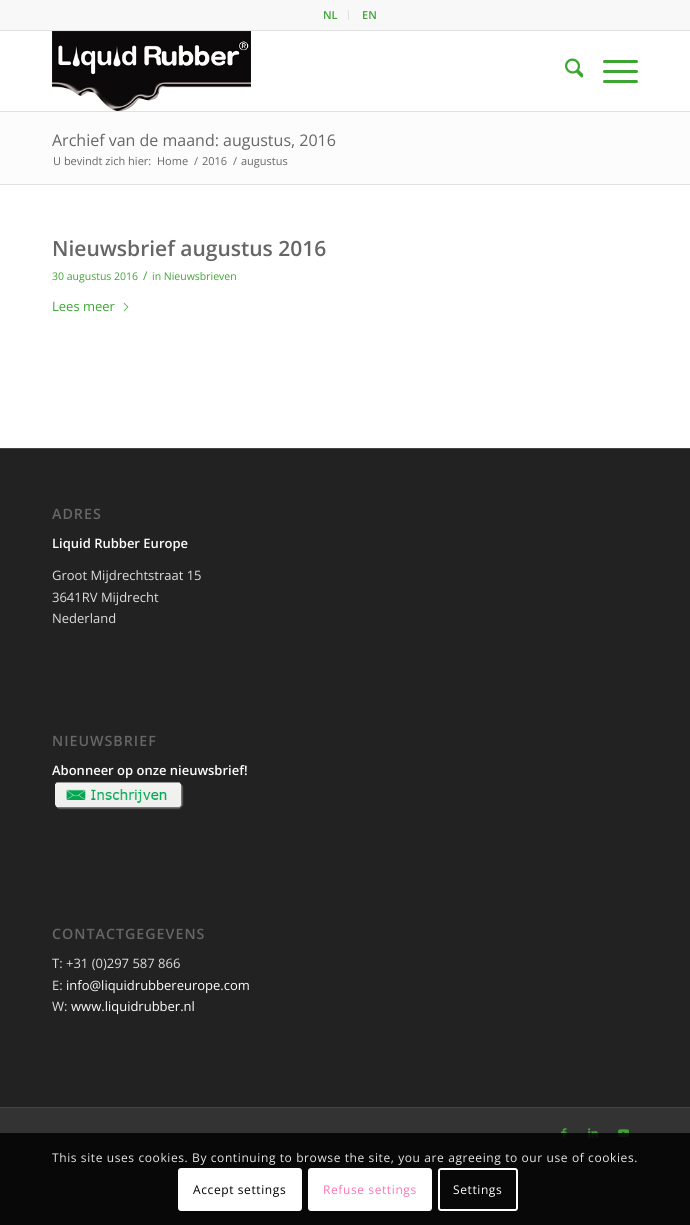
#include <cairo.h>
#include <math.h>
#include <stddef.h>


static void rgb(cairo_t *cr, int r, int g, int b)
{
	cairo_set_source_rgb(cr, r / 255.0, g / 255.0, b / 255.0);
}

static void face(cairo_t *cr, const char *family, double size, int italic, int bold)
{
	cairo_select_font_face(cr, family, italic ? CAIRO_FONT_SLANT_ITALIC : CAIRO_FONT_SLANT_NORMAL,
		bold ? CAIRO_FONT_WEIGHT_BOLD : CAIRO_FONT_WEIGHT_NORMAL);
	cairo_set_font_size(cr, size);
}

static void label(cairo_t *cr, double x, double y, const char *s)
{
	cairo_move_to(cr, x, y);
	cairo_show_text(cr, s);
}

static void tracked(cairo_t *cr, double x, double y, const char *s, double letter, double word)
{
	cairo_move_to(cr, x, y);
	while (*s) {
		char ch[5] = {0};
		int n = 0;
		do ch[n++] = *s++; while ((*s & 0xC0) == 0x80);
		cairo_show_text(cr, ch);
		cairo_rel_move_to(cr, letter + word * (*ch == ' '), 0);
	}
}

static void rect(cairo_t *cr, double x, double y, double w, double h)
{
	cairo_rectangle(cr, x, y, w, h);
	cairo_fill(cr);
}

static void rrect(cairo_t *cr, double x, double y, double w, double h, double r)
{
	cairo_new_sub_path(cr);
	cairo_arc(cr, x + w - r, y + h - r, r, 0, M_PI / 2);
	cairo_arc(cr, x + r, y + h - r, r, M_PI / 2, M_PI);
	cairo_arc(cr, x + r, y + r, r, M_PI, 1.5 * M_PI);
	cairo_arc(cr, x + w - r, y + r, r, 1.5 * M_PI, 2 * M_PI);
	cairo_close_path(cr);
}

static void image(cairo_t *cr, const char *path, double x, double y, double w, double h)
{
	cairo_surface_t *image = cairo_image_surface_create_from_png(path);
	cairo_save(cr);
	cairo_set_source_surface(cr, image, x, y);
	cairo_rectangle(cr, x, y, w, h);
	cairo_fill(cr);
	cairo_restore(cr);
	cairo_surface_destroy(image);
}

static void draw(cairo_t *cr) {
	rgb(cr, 51, 51, 51);
	cairo_paint(cr);
	rgb(cr, 255, 255, 255);
	rect(cr, 0, 31, 690, 417);
	rgb(cr, 248, 248, 248);
	rect(cr, 0, 0, 690, 30);
	rgb(cr, 225, 225, 225);
	rect(cr, 0, 30, 690, 1);
	rect(cr, 348, 10, 1, 10);
	face(cr, "Open Sans SemiBold", 11, 0, 0);
	rgb(cr, 62, 165, 53);
	label(cr, 323, 19, "NL");
	label(cr, 362, 19, "EN");
	rgb(cr, 225, 225, 225);
	rect(cr, 0, 111, 690, 1);
	image(cr, "image0.png", 52, 31, 199, 80);
	image(cr, "image1.png", 565, 58, 18, 20);
	rgb(cr, 62, 165, 53);
	rrect(cr, 603, 70, 35, 3, 1.5);
	cairo_fill(cr);
	rrect(cr, 603, 60, 35, 3, 1.5);
	cairo_fill(cr);
	rrect(cr, 603, 80, 35, 3, 1.5);
	cairo_fill(cr);
	rgb(cr, 252, 252, 252);
	rect(cr, 0, 112, 690, 72);
	face(cr, "Open Sans", 16, 0, 0);
	rgb(cr, 102, 102, 102);
	label(cr, 52, 146, "Archief van de maand: augustus, 2016");
	face(cr, "Open Sans", 11, 0, 0);
	label(cr, 53, 165, "U bevindt zich hier:");
	label(cr, 157, 165, "Home");
	label(cr, 194, 165, "/");
	label(cr, 202, 165, "2016");
	label(cr, 233, 165, "/");
	label(cr, 241, 165, "augustus");
	rgb(cr, 225, 225, 225);
	rect(cr, 0, 184, 690, 1);
	face(cr, "Open Sans SemiBold", 21, 0, 0);
	rgb(cr, 102, 102, 102);
	label(cr, 52, 256, "Nieuwsbrief augustus 2016");
	face(cr, "Open Sans", 10.5, 0, 0);
	rgb(cr, 62, 165, 53);
	label(cr, 52, 280, "30 augustus 2016");
	face(cr, "Open Sans", 12, 0, 0);
	label(cr, 143, 280, "/");
	face(cr, "Open Sans", 10.5, 0, 0);
	label(cr, 152, 280, "in Nieuwsbrieven");
	face(cr, "Open Sans", 13, 0, 0);
	label(cr, 52, 311, "Lees meer");
	image(cr, "image2.png", 123, 302, 6, 10);
	rgb(cr, 34, 34, 34);
	rect(cr, 0, 449, 690, 658);
	rgb(cr, 68, 68, 68);
	rect(cr, 0, 448, 690, 1);
	face(cr, "Open Sans SemiBold", 14.25, 0, 0);
	rgb(cr, 102, 102, 102);
	tracked(cr, 52, 519, "ADRES", 1, 0);
	face(cr, "Open Sans SemiBold", 13, 0, 0);
	rgb(cr, 255, 255, 255);
	label(cr, 52, 548, "Liquid Rubber Europe");
	face(cr, "Open Sans", 13, 0, 0);
	rgb(cr, 221, 221, 221);
	label(cr, 52, 580, "Groot Mijdrechtstraat 15");
	label(cr, 52, 602, "3641RV Mijdrecht");
	label(cr, 52, 623, "Nederland");
	face(cr, "Open Sans SemiBold", 14.25, 0, 0);
	rgb(cr, 102, 102, 102);
	tracked(cr, 52, 746, "NIEUWSBRIEF", 1, 0);
	face(cr, "Open Sans SemiBold", 13, 0, 0);
	rgb(cr, 255, 255, 255);
	label(cr, 52, 775, "Abonneer op onze nieuwsbrief!");
	image(cr, "image3.png", 55, 782, 129, 28);
	face(cr, "Open Sans SemiBold", 14.25, 0, 0);
	rgb(cr, 102, 102, 102);
	tracked(cr, 52, 939, "CONTACTGEGEVENS", 1, 0);
	face(cr, "Open Sans", 13, 0, 0);
	rgb(cr, 221, 221, 221);
	label(cr, 52, 968, "T: +31 (0)297 587 866");
	label(cr, 52, 990, "E:");
	rgb(cr, 255, 255, 255);
	label(cr, 66, 990, "info@liquidrubbereurope.com");
	rgb(cr, 221, 221, 221);
	label(cr, 52, 1011, "W:");
	rgb(cr, 255, 255, 255);
	label(cr, 71, 1011, "www.liquidrubber.nl");
	rgb(cr, 68, 68, 68);
	rect(cr, 0, 1107, 690, 1);
	image(cr, "image4.png", 561, 1128, 6, 11);
	image(cr, "image5.png", 588, 1128, 10, 10);
	image(cr, "image6.png", 618, 1129, 11, 8);
	cairo_set_source_rgba(cr, 0, 0, 0, 0.85);
	rect(cr, 0, 1133, 690, 92);
	face(cr, "Open Sans", 12, 0, 0);
	rgb(cr, 230, 230, 230);
	tracked(cr, 52, 1162, "This site uses cookies. By continuing to browse the site, you are agreeing to our use of cookies.", 0.6, 0);
	rgb(cr, 255, 255, 255);
	rrect(cr, 178, 1168, 124, 43, 3);
	cairo_fill(cr);
	rgb(cr, 0, 0, 0);
	tracked(cr, 193, 1194, "Accept settings", 0.6, 0);
	rgb(cr, 255, 255, 255);
	rrect(cr, 309, 1169, 122, 41, 2);
	cairo_fill_preserve(cr);
	cairo_stroke(cr);
	rgb(cr, 255, 117, 181);
	tracked(cr, 323, 1194, "Refuse settings", 0.6, 0);
	rrect(cr, 439, 1169, 78, 41, 2);
	rgb(cr, 255, 255, 255);
	cairo_stroke(cr);
	tracked(cr, 453, 1194, "Settings", 0.6, 0);
}

int main(void) {
	cairo_surface_t *surface = cairo_image_surface_create(CAIRO_FORMAT_RGB24, 690, 1225);
	cairo_t *cr = cairo_create(surface);
	cairo_font_options_t *options = cairo_font_options_create();
	cairo_font_options_set_hint_metrics(options, CAIRO_HINT_METRICS_OFF);
	cairo_font_options_set_hint_style(options, CAIRO_HINT_STYLE_NONE);
	cairo_set_font_options(cr, options);
	cairo_set_miter_limit(cr, 4);
	draw(cr);
	cairo_surface_write_to_png(surface, "render.png");
	cairo_font_options_destroy(options);
	cairo_destroy(cr);
	cairo_surface_destroy(surface);
	return 0;
}
